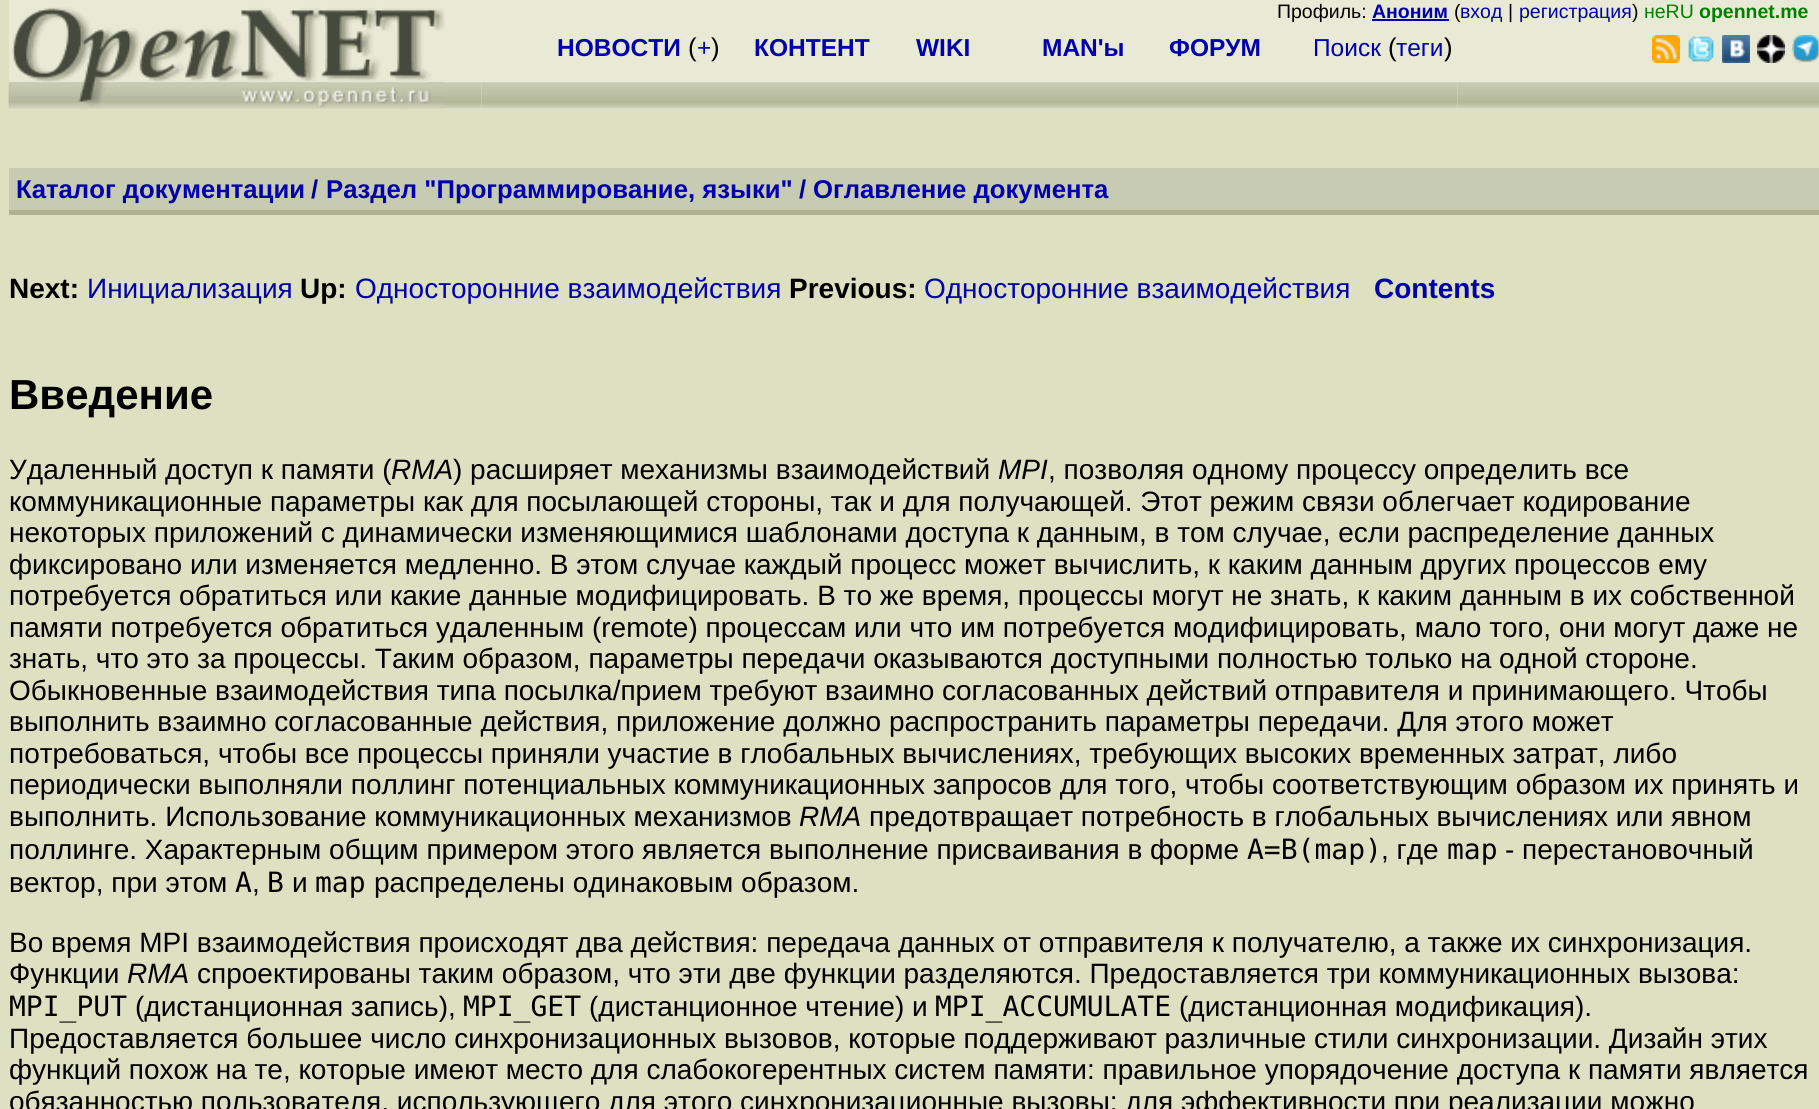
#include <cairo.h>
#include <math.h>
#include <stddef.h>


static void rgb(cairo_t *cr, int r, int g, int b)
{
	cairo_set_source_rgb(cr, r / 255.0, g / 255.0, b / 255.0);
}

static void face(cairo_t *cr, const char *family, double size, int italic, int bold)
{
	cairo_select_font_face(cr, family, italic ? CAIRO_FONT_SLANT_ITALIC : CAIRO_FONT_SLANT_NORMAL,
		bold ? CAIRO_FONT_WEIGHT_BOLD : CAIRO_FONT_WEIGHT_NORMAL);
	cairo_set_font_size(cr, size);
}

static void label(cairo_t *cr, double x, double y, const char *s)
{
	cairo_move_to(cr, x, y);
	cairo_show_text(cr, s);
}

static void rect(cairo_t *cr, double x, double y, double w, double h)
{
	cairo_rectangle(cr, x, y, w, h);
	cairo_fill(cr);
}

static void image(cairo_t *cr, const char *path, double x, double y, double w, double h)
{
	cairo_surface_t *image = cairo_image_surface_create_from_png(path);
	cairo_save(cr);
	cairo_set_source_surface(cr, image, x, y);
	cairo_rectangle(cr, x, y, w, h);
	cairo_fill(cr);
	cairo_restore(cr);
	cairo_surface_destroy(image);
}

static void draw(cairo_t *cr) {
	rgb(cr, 221, 225, 194);
	cairo_paint(cr);
	rgb(cr, 233, 234, 214);
	rect(cr, 9, 0, 1810, 4);
	rect(cr, 9, 4, 1810, 105);
	face(cr, "Liberation Sans", 19.5, 0, 0);
	rgb(cr, 0, 0, 0);
	label(cr, 1277, 18, "Профиль:");
	face(cr, "Liberation Sans", 19.5, 0, 1);
	rgb(cr, 0, 0, 173);
	label(cr, 1372, 18, "Аноним");
	rect(cr, 1372, 19, 77, 2);
	face(cr, "Liberation Sans", 19.5, 0, 0);
	rgb(cr, 0, 0, 0);
	label(cr, 1454, 18, "(");
	rgb(cr, 0, 0, 173);
	label(cr, 1460, 18, "вход");
	rgb(cr, 0, 0, 0);
	label(cr, 1508, 18, "|");
	rgb(cr, 0, 0, 173);
	label(cr, 1519, 18, "регистрация");
	rgb(cr, 0, 0, 0);
	label(cr, 1632, 18, ")");
	rgb(cr, 0, 128, 0);
	label(cr, 1644, 18, "неRU");
	face(cr, "Liberation Sans", 19.5, 0, 1);
	label(cr, 1699, 18, "opennet.me");
	image(cr, "image0.png", 8, 82, 473, 27);
	image(cr, "image1.png", 8, 7, 437, 102);
	image(cr, "image2.png", 553, 82, 905, 27);
	face(cr, "Liberation Sans", 24.5, 0, 1);
	rgb(cr, 0, 0, 173);
	label(cr, 557, 56, "НОВОСТИ");
	face(cr, "Liberation Sans", 25.7, 0, 0);
	rgb(cr, 0, 0, 0);
	label(cr, 688, 56, "(");
	face(cr, "Liberation Sans", 24.5, 0, 0);
	rgb(cr, 0, 0, 173);
	label(cr, 697, 56, "+");
	face(cr, "Liberation Sans", 25.7, 0, 0);
	rgb(cr, 0, 0, 0);
	label(cr, 711, 56, ")");
	face(cr, "Liberation Sans", 24.5, 0, 1);
	rgb(cr, 0, 0, 173);
	label(cr, 754, 56, "КОНТЕНТ");
	label(cr, 916, 56, "WIKI");
	label(cr, 1042, 56, "MAN'ы");
	label(cr, 1169, 56, "ФОРУМ");
	face(cr, "Liberation Sans", 24.5, 0, 0);
	label(cr, 1313, 56, "Поиск");
	face(cr, "Liberation Sans", 25.7, 0, 0);
	rgb(cr, 0, 0, 0);
	label(cr, 1388, 56, "(");
	face(cr, "Liberation Sans", 24.5, 0, 0);
	rgb(cr, 0, 0, 173);
	label(cr, 1396, 56, "теги");
	face(cr, "Liberation Sans", 25.7, 0, 0);
	rgb(cr, 0, 0, 0);
	label(cr, 1444, 56, ")");
	image(cr, "image3.png", 1458, 82, 361, 27);
	image(cr, "image4.png", 1652, 35, 28, 28);
	image(cr, "image5.png", 1688, 36, 26, 26);
	image(cr, "image6.png", 1722, 35, 28, 28);
	image(cr, "image7.png", 1757, 35, 28, 28);
	image(cr, "image8.png", 1792, 35, 27, 28);
	image(cr, "image9.png", 481, 82, 72, 27);
	rgb(cr, 199, 203, 177);
	rect(cr, 9, 168, 1810, 42);
	face(cr, "Liberation Sans", 25.7, 0, 1);
	rgb(cr, 0, 0, 173);
	label(cr, 16, 198, "Каталог документации");
	rgb(cr, 0, 0, 144);
	label(cr, 311, 198, "/");
	rgb(cr, 0, 0, 173);
	label(cr, 326, 198, "Раздел \"Программирование, языки\"");
	rgb(cr, 0, 0, 144);
	label(cr, 799, 198, "/");
	rgb(cr, 0, 0, 173);
	label(cr, 813, 198, "Оглавление документа");
	rgb(cr, 176, 177, 144);
	rect(cr, 9, 210, 1810, 5);
	face(cr, "Liberation Sans", 28, 0, 1);
	rgb(cr, 0, 0, 0);
	label(cr, 9, 298, "Next:");
	face(cr, "Liberation Sans", 28, 0, 0);
	rgb(cr, 0, 0, 173);
	label(cr, 87, 298, "Инициализация");
	face(cr, "Liberation Sans", 28, 0, 1);
	rgb(cr, 0, 0, 0);
	label(cr, 300, 298, "Up:");
	face(cr, "Liberation Sans", 28, 0, 0);
	rgb(cr, 0, 0, 173);
	label(cr, 355, 298, "Односторонние взаимодействия");
	face(cr, "Liberation Sans", 28, 0, 1);
	rgb(cr, 0, 0, 0);
	label(cr, 789, 298, "Previous:");
	face(cr, "Liberation Sans", 28, 0, 0);
	rgb(cr, 0, 0, 173);
	label(cr, 924, 298, "Односторонние взаимодействия");
	face(cr, "Liberation Sans", 28, 0, 1);
	label(cr, 1374, 298, "Contents");
	face(cr, "Liberation Sans", 42, 0, 1);
	rgb(cr, 0, 0, 0);
	label(cr, 9, 409, "Введение");
	face(cr, "Liberation Sans", 28, 0, 0);
	label(cr, 9, 479, "Удаленный доступ к памяти (");
	face(cr, "Liberation Sans", 28, 1, 0);
	label(cr, 391, 479, "RMA");
	face(cr, "Liberation Sans", 28, 0, 0);
	label(cr, 453, 479, ") расширяет механизмы взаимодействий");
	face(cr, "Liberation Sans", 28, 1, 0);
	label(cr, 998, 479, "MPI");
	face(cr, "Liberation Sans", 28, 0, 0);
	label(cr, 1048, 479, ", позволяя одному процессу определить все");
	label(cr, 9, 511, "коммуникационные параметры как для посылающей стороны, так и для получающей. Этот режим связи облегчает кодирование");
	label(cr, 9, 542, "некоторых приложений с динамически изменяющимися шаблонами доступа к данным, в том случае, если распределение данных");
	label(cr, 9, 574, "фиксировано или изменяется медленно. В этом случае каждый процесс может вычислить, к каким данным других процессов ему");
	label(cr, 9, 605, "потребуется обратиться или какие данные модифицировать. В то же время, процессы могут не знать, к каким данным в их собственной");
	label(cr, 9, 637, "памяти потребуется обратиться удаленным (remote) процессам или что им потребуется модифицировать, мало того, они могут даже не");
	label(cr, 9, 668, "знать, что это за процессы. Таким образом, параметры передачи оказываются доступными полностью только на одной стороне.");
	label(cr, 9, 700, "Обыкновенные взаимодействия типа посылка/прием требуют взаимно согласованных действий отправителя и принимающего. Чтобы");
	label(cr, 9, 731, "выполнить взаимно согласованные действия, приложение должно распространить параметры передачи. Для этого может");
	label(cr, 9, 763, "потребоваться, чтобы все процессы приняли участие в глобальных вычислениях, требующих высоких временных затрат, либо");
	label(cr, 9, 794, "периодически выполняли поллинг потенциальных коммуникационных запросов для того, чтобы соответствующим образом их принять и");
	label(cr, 9, 826, "выполнить. Использование коммуникационных механизмов");
	face(cr, "Liberation Sans", 28, 1, 0);
	label(cr, 799, 826, "RMA");
	face(cr, "Liberation Sans", 28, 0, 0);
	label(cr, 869, 826, "предотвращает потребность в глобальных вычислениях или явном");
	label(cr, 9, 859, "поллинге. Характерным общим примером этого является выполнение присваивания в форме");
	face(cr, "DejaVu Sans Mono", 28, 0, 0);
	label(cr, 1247, 859, "A=B(map)");
	face(cr, "Liberation Sans", 28, 0, 0);
	label(cr, 1381, 859, ", где");
	face(cr, "DejaVu Sans Mono", 28, 0, 0);
	label(cr, 1447, 859, "map");
	face(cr, "Liberation Sans", 28, 0, 0);
	label(cr, 1505, 859, "- перестановочный");
	label(cr, 9, 892, "вектор, при этом");
	face(cr, "DejaVu Sans Mono", 28, 0, 0);
	label(cr, 235, 892, "A");
	face(cr, "Liberation Sans", 28, 0, 0);
	label(cr, 252, 892, ",");
	face(cr, "DejaVu Sans Mono", 28, 0, 0);
	label(cr, 267, 892, "B");
	face(cr, "Liberation Sans", 28, 0, 0);
	label(cr, 292, 892, "и");
	face(cr, "DejaVu Sans Mono", 28, 0, 0);
	label(cr, 315, 892, "map");
	face(cr, "Liberation Sans", 28, 0, 0);
	label(cr, 374, 892, "распределены одинаковым образом.");
	label(cr, 9, 952, "Во время MPI взаимодействия происходят два действия: передача данных от отправителя к получателю, а также их синхронизация.");
	label(cr, 9, 983, "Функции");
	face(cr, "Liberation Sans", 28, 1, 0);
	label(cr, 127, 983, "RMA");
	face(cr, "Liberation Sans", 28, 0, 0);
	label(cr, 197, 983, "спроектированы таким образом, что эти две функции разделяются. Предоставляется три коммуникационных вызова:");
	face(cr, "DejaVu Sans Mono", 28, 0, 0);
	label(cr, 9, 1016, "MPI_PUT");
	face(cr, "Liberation Sans", 28, 0, 0);
	label(cr, 135, 1016, "(дистанционная запись),");
	face(cr, "DejaVu Sans Mono", 28, 0, 0);
	label(cr, 463, 1016, "MPI_GET");
	face(cr, "Liberation Sans", 28, 0, 0);
	label(cr, 589, 1016, "(дистанционное чтение) и");
	face(cr, "DejaVu Sans Mono", 28, 0, 0);
	label(cr, 935, 1016, "MPI_ACCUMULATE");
	face(cr, "Liberation Sans", 28, 0, 0);
	label(cr, 1179, 1016, "(дистанционная модификация).");
	label(cr, 9, 1048, "Предоставляется большее число синхронизационных вызовов, которые поддерживают различные стили синхронизации. Дизайн этих");
	label(cr, 9, 1079, "функций похож на те, которые имеют место для слабокогерентных систем памяти: правильное упорядочение доступа к памяти является");
	label(cr, 9, 1111, "обязанностью пользователя, использующего для этого синхронизационные вызовы; для эффективности при реализации можно");
}

int main(void) {
	cairo_surface_t *surface = cairo_image_surface_create(CAIRO_FORMAT_RGB24, 1819, 1109);
	cairo_t *cr = cairo_create(surface);
	cairo_font_options_t *options = cairo_font_options_create();
	cairo_font_options_set_hint_metrics(options, CAIRO_HINT_METRICS_OFF);
	cairo_font_options_set_hint_style(options, CAIRO_HINT_STYLE_NONE);
	cairo_set_font_options(cr, options);
	cairo_set_miter_limit(cr, 4);
	draw(cr);
	cairo_surface_write_to_png(surface, "render.png");
	cairo_font_options_destroy(options);
	cairo_destroy(cr);
	cairo_surface_destroy(surface);
	return 0;
}
